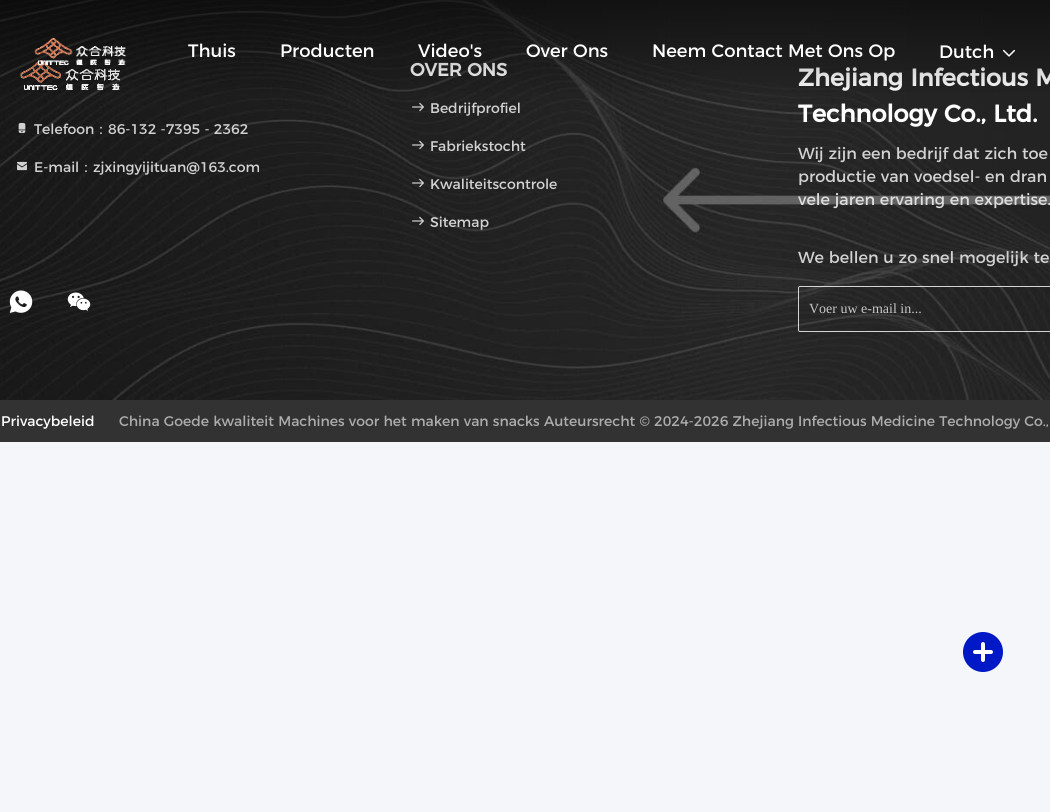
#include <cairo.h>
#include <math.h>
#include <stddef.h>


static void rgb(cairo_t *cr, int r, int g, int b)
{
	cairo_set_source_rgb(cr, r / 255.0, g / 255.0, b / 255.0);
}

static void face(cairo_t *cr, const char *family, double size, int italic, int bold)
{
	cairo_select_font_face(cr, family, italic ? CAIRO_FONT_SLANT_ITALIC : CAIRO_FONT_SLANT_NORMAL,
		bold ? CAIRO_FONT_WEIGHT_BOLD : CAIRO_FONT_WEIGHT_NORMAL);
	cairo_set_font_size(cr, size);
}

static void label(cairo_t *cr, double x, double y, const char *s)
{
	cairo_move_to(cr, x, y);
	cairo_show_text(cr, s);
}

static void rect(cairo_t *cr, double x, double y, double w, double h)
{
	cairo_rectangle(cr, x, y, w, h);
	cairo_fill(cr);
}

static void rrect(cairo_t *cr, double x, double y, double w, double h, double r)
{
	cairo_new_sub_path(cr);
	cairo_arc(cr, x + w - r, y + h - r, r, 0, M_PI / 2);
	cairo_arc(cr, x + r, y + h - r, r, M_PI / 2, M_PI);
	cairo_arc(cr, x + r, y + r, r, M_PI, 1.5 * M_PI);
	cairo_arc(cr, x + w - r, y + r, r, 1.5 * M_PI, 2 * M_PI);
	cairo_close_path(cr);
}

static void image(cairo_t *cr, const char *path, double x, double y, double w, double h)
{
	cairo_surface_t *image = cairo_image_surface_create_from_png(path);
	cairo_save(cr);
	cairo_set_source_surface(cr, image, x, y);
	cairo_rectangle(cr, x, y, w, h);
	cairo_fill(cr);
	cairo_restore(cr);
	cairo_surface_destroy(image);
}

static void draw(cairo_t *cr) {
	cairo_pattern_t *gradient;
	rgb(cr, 244, 246, 249);
	cairo_paint(cr);
	image(cr, "image2.png", 0, 0, 1050, 400);
	image(cr, "image3.png", 20, 60, 100, 30);
	face(cr, "Montserrat", 18, 0, 1);
	rgb(cr, 255, 255, 255);
	label(cr, 410, 76, "OVER ONS");
	face(cr, "Montserrat", 24, 0, 1);
	label(cr, 798, 86, "Zhejiang Infectious M");
	gradient = cairo_pattern_create_linear(525, 0, 525, 100);
	cairo_pattern_add_color_stop_rgba(gradient, 0, 0, 0, 0, 0.5);
	cairo_pattern_add_color_stop_rgba(gradient, 1, 0, 0, 0, 0);
	cairo_set_source(cr, gradient);
	cairo_pattern_destroy(gradient);
	rect(cr, 0, 0, 1050, 93);
	image(cr, "image0.png", 34, 38, 92, 27);
	face(cr, "Montserrat", 18, 0, 0);
	rgb(cr, 255, 255, 255);
	label(cr, 188, 57, "Thuis");
	label(cr, 280, 57, "Producten");
	label(cr, 418, 57, "Video's");
	label(cr, 526, 57, "Over Ons");
	label(cr, 652, 57, "Neem Contact Met Ons Op");
	label(cr, 939, 58, "Dutch");
	image(cr, "image1.png", 1002, 49, 13, 8);
	image(cr, "image4.png", 18, 123, 8, 10);
	face(cr, "Montserrat", 14, 0, 0);
	rgb(cr, 210, 210, 210);
	label(cr, 34, 134, "Telefoon");
	face(cr, "WenQuanYi Zen Hei Medium", 14, 0, 0);
	label(cr, 94, 134, "：");
	face(cr, "Montserrat", 14, 0, 0);
	label(cr, 108, 134, "86-132 -7395 - 2362");
	image(cr, "image5.png", 17, 161, 10, 10);
	label(cr, 34, 172, "E-mail");
	face(cr, "WenQuanYi Zen Hei Medium", 14, 0, 0);
	label(cr, 79, 172, "：");
	face(cr, "Montserrat", 14, 0, 0);
	label(cr, 93, 172, "zjxingyijituan@163.com");
	image(cr, "image6.png", 9, 290, 24, 23);
	image(cr, "image7.png", 67, 292, 24, 19);
	image(cr, "image8.png", 412, 102, 12, 10);
	label(cr, 430, 113, "Bedrijfprofiel");
	image(cr, "image9.png", 412, 140, 12, 10);
	label(cr, 430, 151, "Fabriekstocht");
	image(cr, "image10.png", 412, 178, 12, 10);
	label(cr, 430, 189, "Kwaliteitscontrole");
	image(cr, "image11.png", 412, 216, 12, 10);
	label(cr, 430, 227, "Sitemap");
	face(cr, "Montserrat", 24, 0, 1);
	rgb(cr, 255, 255, 255);
	label(cr, 798, 122, "Technology Co., Ltd.");
	face(cr, "Montserrat", 16, 0, 0);
	rgb(cr, 210, 210, 210);
	label(cr, 798, 159, "Wij zijn een bedrijf dat zich toe");
	label(cr, 798, 182, "productie van voedsel- en dran");
	rgb(cr, 222, 222, 222);
	label(cr, 798, 205, "vele jaren ervaring en expertise.");
	rgb(cr, 210, 210, 210);
	label(cr, 798, 263, "We bellen u zo snel mogelijk te");
	rrect(cr, 798.5, 286.5, 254, 45, 1.5);
	cairo_set_source_rgba(cr, 1, 1, 1, 0.8);
	cairo_set_line_width(cr, 1);
	cairo_stroke(cr);
	face(cr, "Liberation Serif", 14, 0, 0);
	rgb(cr, 199, 199, 199);
	label(cr, 809, 313, "Voer uw e-mail in...");
	rgb(cr, 50, 50, 50);
	rect(cr, 0, 400, 1050, 42);
	face(cr, "Montserrat", 14, 0, 0);
	rgb(cr, 255, 255, 255);
	label(cr, 1, 426, "Privacybeleid");
	rgb(cr, 173, 173, 173);
	label(cr, 119, 426, "China Goede kwaliteit Machines voor het maken van snacks Auteursrecht © 2024-2026 Zhejiang Infectious Medicine Technology Co.,");
	rgb(cr, 0, 24, 198);
	cairo_new_path(cr);
	cairo_arc(cr, 983, 652, 20, 0, 2 * M_PI);
	cairo_fill(cr);
	rgb(cr, 255, 255, 255);
	rrect(cr, 973, 650, 20, 4, 2);
	cairo_fill(cr);
	cairo_new_path(cr);
	cairo_move_to(cr, 985, 644);
	cairo_line_to(cr, 985, 660);
	cairo_curve_to(cr, 985, 661, 984, 662, 983, 662);
	cairo_curve_to(cr, 982, 662, 981, 661, 981, 660);
	cairo_line_to(cr, 981, 644);
	cairo_curve_to(cr, 981, 643, 982, 642, 983, 642);
	cairo_curve_to(cr, 984, 642, 985, 643, 985, 644);
	cairo_close_path(cr);
	cairo_fill(cr);
}

int main(void) {
	cairo_surface_t *surface = cairo_image_surface_create(CAIRO_FORMAT_RGB24, 1050, 812);
	cairo_t *cr = cairo_create(surface);
	cairo_font_options_t *options = cairo_font_options_create();
	cairo_font_options_set_hint_metrics(options, CAIRO_HINT_METRICS_OFF);
	cairo_font_options_set_hint_style(options, CAIRO_HINT_STYLE_NONE);
	cairo_set_font_options(cr, options);
	cairo_set_miter_limit(cr, 4);
	draw(cr);
	cairo_surface_write_to_png(surface, "render.png");
	cairo_font_options_destroy(options);
	cairo_destroy(cr);
	cairo_surface_destroy(surface);
	return 0;
}
